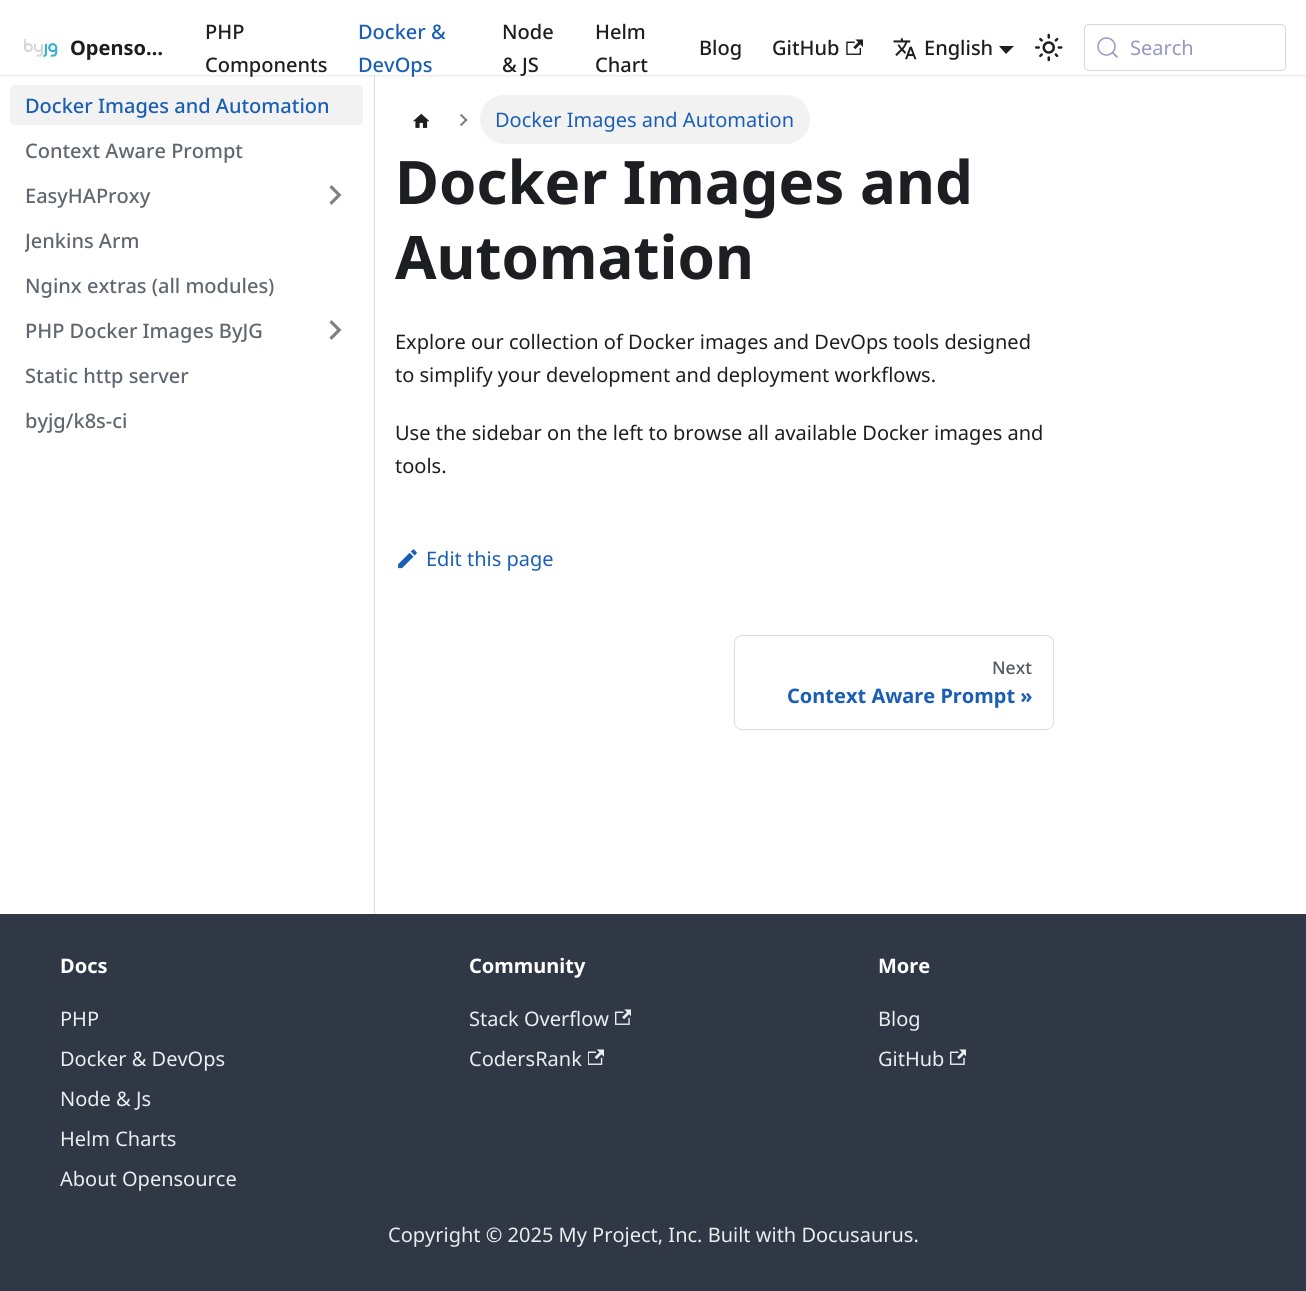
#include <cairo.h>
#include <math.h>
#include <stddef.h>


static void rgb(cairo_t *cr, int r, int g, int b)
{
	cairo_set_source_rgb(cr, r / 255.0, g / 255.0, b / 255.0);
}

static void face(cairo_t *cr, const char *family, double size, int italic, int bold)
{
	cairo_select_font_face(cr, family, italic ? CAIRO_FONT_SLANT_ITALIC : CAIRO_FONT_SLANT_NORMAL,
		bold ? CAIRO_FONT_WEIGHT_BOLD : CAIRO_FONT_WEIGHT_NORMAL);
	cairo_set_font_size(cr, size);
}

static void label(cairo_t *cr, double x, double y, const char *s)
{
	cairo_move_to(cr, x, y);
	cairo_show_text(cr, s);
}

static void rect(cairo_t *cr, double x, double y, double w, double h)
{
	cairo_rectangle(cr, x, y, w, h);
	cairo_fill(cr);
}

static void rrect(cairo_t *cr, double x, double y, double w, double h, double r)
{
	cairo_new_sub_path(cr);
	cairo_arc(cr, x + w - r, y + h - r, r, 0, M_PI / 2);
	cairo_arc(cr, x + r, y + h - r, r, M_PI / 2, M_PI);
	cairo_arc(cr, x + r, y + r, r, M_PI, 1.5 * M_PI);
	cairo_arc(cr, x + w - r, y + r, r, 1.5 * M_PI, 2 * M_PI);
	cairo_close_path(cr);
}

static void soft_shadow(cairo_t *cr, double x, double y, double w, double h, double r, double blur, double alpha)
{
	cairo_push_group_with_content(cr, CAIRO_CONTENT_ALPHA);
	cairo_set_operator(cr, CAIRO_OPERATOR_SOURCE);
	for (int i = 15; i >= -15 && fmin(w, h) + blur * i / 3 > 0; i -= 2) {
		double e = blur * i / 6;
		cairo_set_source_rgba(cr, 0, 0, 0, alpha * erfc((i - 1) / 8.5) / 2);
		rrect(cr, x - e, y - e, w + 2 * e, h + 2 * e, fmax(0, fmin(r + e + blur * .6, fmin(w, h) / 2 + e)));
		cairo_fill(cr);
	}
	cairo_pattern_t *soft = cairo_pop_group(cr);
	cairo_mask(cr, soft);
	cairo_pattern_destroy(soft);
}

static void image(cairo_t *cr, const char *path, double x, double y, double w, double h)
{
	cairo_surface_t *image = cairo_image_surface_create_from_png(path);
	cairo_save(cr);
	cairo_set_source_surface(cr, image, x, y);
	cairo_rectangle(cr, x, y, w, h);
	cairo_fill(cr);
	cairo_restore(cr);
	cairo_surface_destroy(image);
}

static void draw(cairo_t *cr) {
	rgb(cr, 255, 255, 255);
	cairo_paint(cr);
	rgb(cr, 218, 221, 225);
	rect(cr, 374, 75, 1, 839);
	rgb(cr, 0, 0, 0);
	soft_shadow(cr, 0, 1, 1306, 75, 0, 1, 0.1);
	rgb(cr, 255, 255, 255);
	rect(cr, 0, 0, 1306, 75);
	image(cr, "image0.png", 23, 38, 35, 19);
	face(cr, "Noto Sans", 20, 0, 1);
	rgb(cr, 28, 30, 33);
	label(cr, 70, 55, "Openso…");
	face(cr, "Noto Sans Medium", 20, 0, 0);
	label(cr, 205, 39, "PHP");
	label(cr, 205, 72, "Components");
	rgb(cr, 26, 95, 180);
	label(cr, 358, 39, "Docker &");
	label(cr, 358, 72, "DevOps");
	rgb(cr, 28, 30, 33);
	label(cr, 502, 39, "Node");
	label(cr, 502, 72, "& JS");
	label(cr, 595, 39, "Helm");
	label(cr, 595, 72, "Chart");
	label(cr, 699, 55, "Blog");
	label(cr, 772, 55, "GitHub");
	image(cr, "image1.png", 846, 39, 17, 16);
	image(cr, "image2.png", 893, 38, 24, 22);
	label(cr, 924, 55, "English");
	cairo_new_path(cr);
	cairo_move_to(cr, 999, 46);
	cairo_line_to(cr, 1014, 46);
	cairo_line_to(cr, 1006, 54);
	cairo_close_path(cr);
	cairo_fill(cr);
	image(cr, "image3.png", 1035, 33, 28, 29);
	rrect(cr, 1084.5, 24.5, 201, 46, 4.5);
	rgb(cr, 214, 214, 231);
	cairo_set_line_width(cr, 1);
	cairo_stroke(cr);
	cairo_arc(cr, 1106.5, 46.5, 8.5, 0, 2 * M_PI);
	rgb(cr, 150, 152, 195);
	cairo_set_line_width(cr, 1.5);
	cairo_stroke(cr);
	cairo_new_path(cr);
	cairo_move_to(cr, 1117, 57);
	cairo_line_to(cr, 1112.5, 52.5);
	cairo_set_line_width(cr, 1.7);
	cairo_set_line_cap(cr, CAIRO_LINE_CAP_ROUND);
	cairo_set_line_join(cr, CAIRO_LINE_JOIN_ROUND);
	cairo_stroke(cr);
	face(cr, "Noto Sans", 20, 0, 0);
	label(cr, 1130, 55, "Search");
	rgb(cr, 242, 242, 242);
	rrect(cr, 10, 85, 353, 40, 5);
	cairo_fill(cr);
	face(cr, "Noto Sans Medium", 20, 0, 0);
	rgb(cr, 26, 95, 180);
	label(cr, 25, 113, "Docker Images and Automation");
	rgb(cr, 96, 103, 112);
	label(cr, 25, 158, "Context Aware Prompt");
	label(cr, 25, 203, "EasyHAProxy");
	rgb(cr, 128, 128, 128);
	cairo_new_path(cr);
	cairo_move_to(cr, 329.5, 187.5);
	cairo_line_to(cr, 337, 195);
	cairo_line_to(cr, 329.5, 202.5);
	cairo_line_to(cr, 331.5, 205);
	cairo_line_to(cr, 341.5, 195);
	cairo_line_to(cr, 331.5, 185);
	cairo_close_path(cr);
	cairo_fill(cr);
	cairo_save(cr);
	cairo_rectangle(cr, 25, 228, 115, 25);
	cairo_clip(cr);
	rgb(cr, 96, 103, 112);
	label(cr, 25, 248, "Jenkins Arm");
	cairo_restore(cr);
	rgb(cr, 96, 103, 112);
	label(cr, 25, 293, "Nginx extras (all modules)");
	label(cr, 25, 338, "PHP Docker Images ByJG");
	rgb(cr, 128, 128, 128);
	cairo_new_path(cr);
	cairo_move_to(cr, 329.5, 322.5);
	cairo_line_to(cr, 337, 330);
	cairo_line_to(cr, 329.5, 337.5);
	cairo_line_to(cr, 331.5, 340);
	cairo_line_to(cr, 341.5, 330);
	cairo_line_to(cr, 331.5, 320);
	cairo_close_path(cr);
	cairo_fill(cr);
	rgb(cr, 96, 103, 112);
	label(cr, 25, 383, "Static http server");
	label(cr, 25, 428, "byjg/k8s-ci");
	image(cr, "image4.png", 413, 113, 17, 15);
	image(cr, "image5.png", 460, 114, 8, 12);
	rgb(cr, 242, 242, 242);
	rrect(cr, 480, 95, 330, 49, 24.5);
	cairo_fill(cr);
	face(cr, "Noto Sans", 20, 0, 0);
	rgb(cr, 26, 95, 180);
	label(cr, 495, 127, "Docker Images and Automation");
	face(cr, "Noto Sans", 60, 0, 1);
	rgb(cr, 28, 30, 33);
	label(cr, 395, 204, "Docker Images and");
	label(cr, 395, 279, "Automation");
	face(cr, "Noto Sans", 20, 0, 0);
	label(cr, 395, 349, "Explore our collection of Docker images and DevOps tools designed");
	label(cr, 395, 382, "to simplify your development and deployment workflows.");
	label(cr, 395, 440, "Use the sidebar on the left to browse all available Docker images and");
	label(cr, 395, 473, "tools.");
	image(cr, "image6.png", 398, 549, 19, 20);
	rgb(cr, 26, 95, 180);
	label(cr, 426, 566, "Edit this page");
	rrect(cr, 734.5, 635.5, 319, 94, 7.5);
	rgb(cr, 218, 221, 225);
	cairo_set_line_width(cr, 1);
	cairo_set_line_cap(cr, CAIRO_LINE_CAP_BUTT);
	cairo_set_line_join(cr, CAIRO_LINE_JOIN_MITER);
	cairo_stroke(cr);
	face(cr, "Noto Sans Medium", 17.5, 0, 0);
	rgb(cr, 82, 88, 96);
	label(cr, 992, 674, "Next");
	face(cr, "Noto Sans", 20, 0, 1);
	rgb(cr, 26, 95, 180);
	label(cr, 787, 703, "Context Aware Prompt »");
	rgb(cr, 48, 56, 70);
	rect(cr, 0, 914, 1306, 377);
	rgb(cr, 255, 255, 255);
	label(cr, 60, 973, "Docs");
	face(cr, "Noto Sans", 20, 0, 0);
	rgb(cr, 235, 237, 240);
	label(cr, 60, 1026, "PHP");
	label(cr, 60, 1066, "Docker & DevOps");
	label(cr, 60, 1106, "Node & Js");
	label(cr, 60, 1146, "Helm Charts");
	label(cr, 60, 1186, "About Opensource");
	face(cr, "Noto Sans", 20, 0, 1);
	rgb(cr, 255, 255, 255);
	label(cr, 469, 973, "Community");
	face(cr, "Noto Sans", 20, 0, 0);
	rgb(cr, 235, 237, 240);
	label(cr, 469, 1026, "Stack Overflow");
	image(cr, "image7.png", 615, 1009, 16, 16);
	label(cr, 469, 1066, "CodersRank");
	image(cr, "image8.png", 588, 1049, 16, 16);
	face(cr, "Noto Sans", 20, 0, 1);
	rgb(cr, 255, 255, 255);
	label(cr, 878, 973, "More");
	face(cr, "Noto Sans", 20, 0, 0);
	rgb(cr, 235, 237, 240);
	label(cr, 878, 1026, "Blog");
	label(cr, 878, 1066, "GitHub");
	image(cr, "image7.png", 950, 1049, 16, 16);
	label(cr, 388, 1242, "Copyright © 2025 My Project, Inc. Built with Docusaurus.");
}

int main(void) {
	cairo_surface_t *surface = cairo_image_surface_create(CAIRO_FORMAT_RGB24, 1306, 1291);
	cairo_t *cr = cairo_create(surface);
	cairo_font_options_t *options = cairo_font_options_create();
	cairo_font_options_set_hint_metrics(options, CAIRO_HINT_METRICS_OFF);
	cairo_font_options_set_hint_style(options, CAIRO_HINT_STYLE_NONE);
	cairo_set_font_options(cr, options);
	cairo_set_miter_limit(cr, 4);
	draw(cr);
	cairo_surface_write_to_png(surface, "render.png");
	cairo_font_options_destroy(options);
	cairo_destroy(cr);
	cairo_surface_destroy(surface);
	return 0;
}
